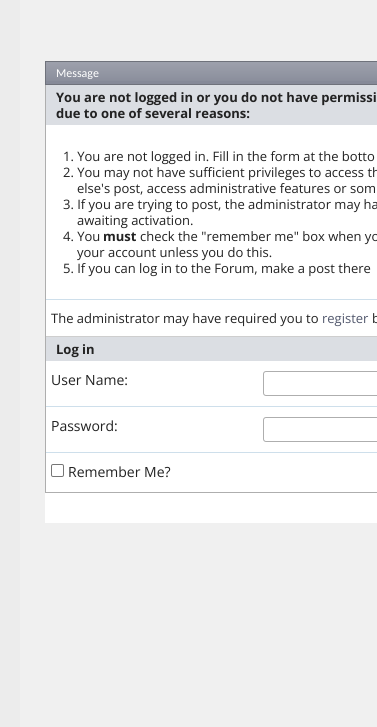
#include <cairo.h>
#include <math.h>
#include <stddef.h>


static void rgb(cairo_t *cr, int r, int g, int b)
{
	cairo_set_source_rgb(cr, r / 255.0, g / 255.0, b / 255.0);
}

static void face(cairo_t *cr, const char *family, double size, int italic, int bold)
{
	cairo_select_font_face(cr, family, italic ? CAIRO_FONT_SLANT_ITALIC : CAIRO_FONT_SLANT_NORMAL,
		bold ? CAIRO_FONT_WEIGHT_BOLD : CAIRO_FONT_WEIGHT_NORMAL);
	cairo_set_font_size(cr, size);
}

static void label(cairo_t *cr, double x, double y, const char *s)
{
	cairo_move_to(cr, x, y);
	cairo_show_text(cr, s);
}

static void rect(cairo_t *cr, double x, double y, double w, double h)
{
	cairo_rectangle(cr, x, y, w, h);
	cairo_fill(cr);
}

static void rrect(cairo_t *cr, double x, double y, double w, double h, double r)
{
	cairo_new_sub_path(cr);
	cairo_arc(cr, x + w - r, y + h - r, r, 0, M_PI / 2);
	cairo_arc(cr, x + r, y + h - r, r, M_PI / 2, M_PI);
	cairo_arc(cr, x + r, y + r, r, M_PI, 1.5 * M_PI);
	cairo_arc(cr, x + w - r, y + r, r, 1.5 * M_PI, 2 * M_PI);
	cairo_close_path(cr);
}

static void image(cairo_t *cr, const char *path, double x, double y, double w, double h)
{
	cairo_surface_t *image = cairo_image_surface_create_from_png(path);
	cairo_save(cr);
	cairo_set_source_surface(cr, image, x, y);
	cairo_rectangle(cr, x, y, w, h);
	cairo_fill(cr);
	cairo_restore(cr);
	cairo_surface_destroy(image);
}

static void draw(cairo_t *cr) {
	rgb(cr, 236, 236, 236);
	cairo_paint(cr);
	rgb(cr, 240, 240, 240);
	rect(cr, 20, 0, 357, 727);
	rgb(cr, 134, 138, 152);
	rect(cr, 46, 62, 331, 22);
	image(cr, "image0.png", 46, 62, 331, 19);
	cairo_rectangle(cr, 45.5, 61.5, 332, 23);
	rgb(cr, 111, 114, 123);
	cairo_set_line_width(cr, 1);
	cairo_stroke(cr);
	face(cr, "Carlito", 12, 0, 0);
	rgb(cr, 255, 255, 255);
	label(cr, 56, 77, "Message");
	rect(cr, 46, 125, 331, 367);
	rgb(cr, 174, 174, 174);
	rect(cr, 45, 492, 332, 1);
	rect(cr, 45, 85, 1, 408);
	rgb(cr, 219, 222, 227);
	rect(cr, 46, 85, 331, 40);
	face(cr, "Open Sans", 13, 0, 1);
	rgb(cr, 34, 34, 34);
	label(cr, 56, 102, "You are not logged in or you do not have permissi");
	label(cr, 56, 118, "due to one of several reasons:");
	face(cr, "Open Sans", 13, 0, 0);
	label(cr, 63, 161, "1. You are not logged in. Fill in the form at the botto");
	label(cr, 63, 177, "2. You may not have sufficient privileges to access th");
	label(cr, 77, 193, "else's post, access administrative features or som");
	label(cr, 63, 209, "3. If you are trying to post, the administrator may ha");
	label(cr, 77, 225, "awaiting activation.");
	label(cr, 63, 241, "4. You");
	face(cr, "Open Sans", 13, 0, 1);
	label(cr, 103, 241, "must");
	face(cr, "Open Sans", 13, 0, 0);
	label(cr, 140, 241, "check the \"remember me\" box when yo");
	label(cr, 77, 257, "your account unless you do this.");
	label(cr, 63, 273, "5. If you can log in to the Forum, make a post there");
	rgb(cr, 206, 223, 235);
	rect(cr, 46, 299, 331, 1);
	rgb(cr, 34, 34, 34);
	label(cr, 51, 323, "The administrator may have required you to");
	rgb(cr, 83, 89, 110);
	label(cr, 322, 323, "register");
	rgb(cr, 34, 34, 34);
	label(cr, 372, 323, "b");
	rgb(cr, 219, 222, 227);
	rect(cr, 46, 337, 331, 24);
	rgb(cr, 206, 206, 206);
	rect(cr, 46, 336, 331, 1);
	face(cr, "Open Sans", 13, 0, 1);
	rgb(cr, 34, 34, 34);
	label(cr, 56, 354, "Log in");
	face(cr, "Open Sans", 14, 0, 0);
	label(cr, 51, 385, "User Name:");
	rrect(cr, 263.5, 371.5, 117, 24, 2.5);
	rgb(cr, 174, 174, 174);
	cairo_stroke(cr);
	rgb(cr, 206, 223, 235);
	rect(cr, 46, 406, 331, 1);
	rgb(cr, 34, 34, 34);
	label(cr, 51, 431, "Password:");
	rrect(cr, 263.5, 417.5, 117, 24, 2.5);
	rgb(cr, 174, 174, 174);
	cairo_stroke(cr);
	rgb(cr, 206, 223, 235);
	rect(cr, 46, 452, 331, 1);
	rrect(cr, 51.5, 464.5, 12, 12, 1.5);
	rgb(cr, 118, 118, 118);
	cairo_stroke(cr);
	rgb(cr, 34, 34, 34);
	label(cr, 68, 477, "Remember Me?");
	rgb(cr, 255, 255, 255);
	rect(cr, 45, 493, 332, 30);
}

int main(void) {
	cairo_surface_t *surface = cairo_image_surface_create(CAIRO_FORMAT_RGB24, 377, 727);
	cairo_t *cr = cairo_create(surface);
	cairo_font_options_t *options = cairo_font_options_create();
	cairo_font_options_set_hint_metrics(options, CAIRO_HINT_METRICS_OFF);
	cairo_font_options_set_hint_style(options, CAIRO_HINT_STYLE_NONE);
	cairo_set_font_options(cr, options);
	cairo_set_miter_limit(cr, 4);
	draw(cr);
	cairo_surface_write_to_png(surface, "render.png");
	cairo_font_options_destroy(options);
	cairo_destroy(cr);
	cairo_surface_destroy(surface);
	return 0;
}
